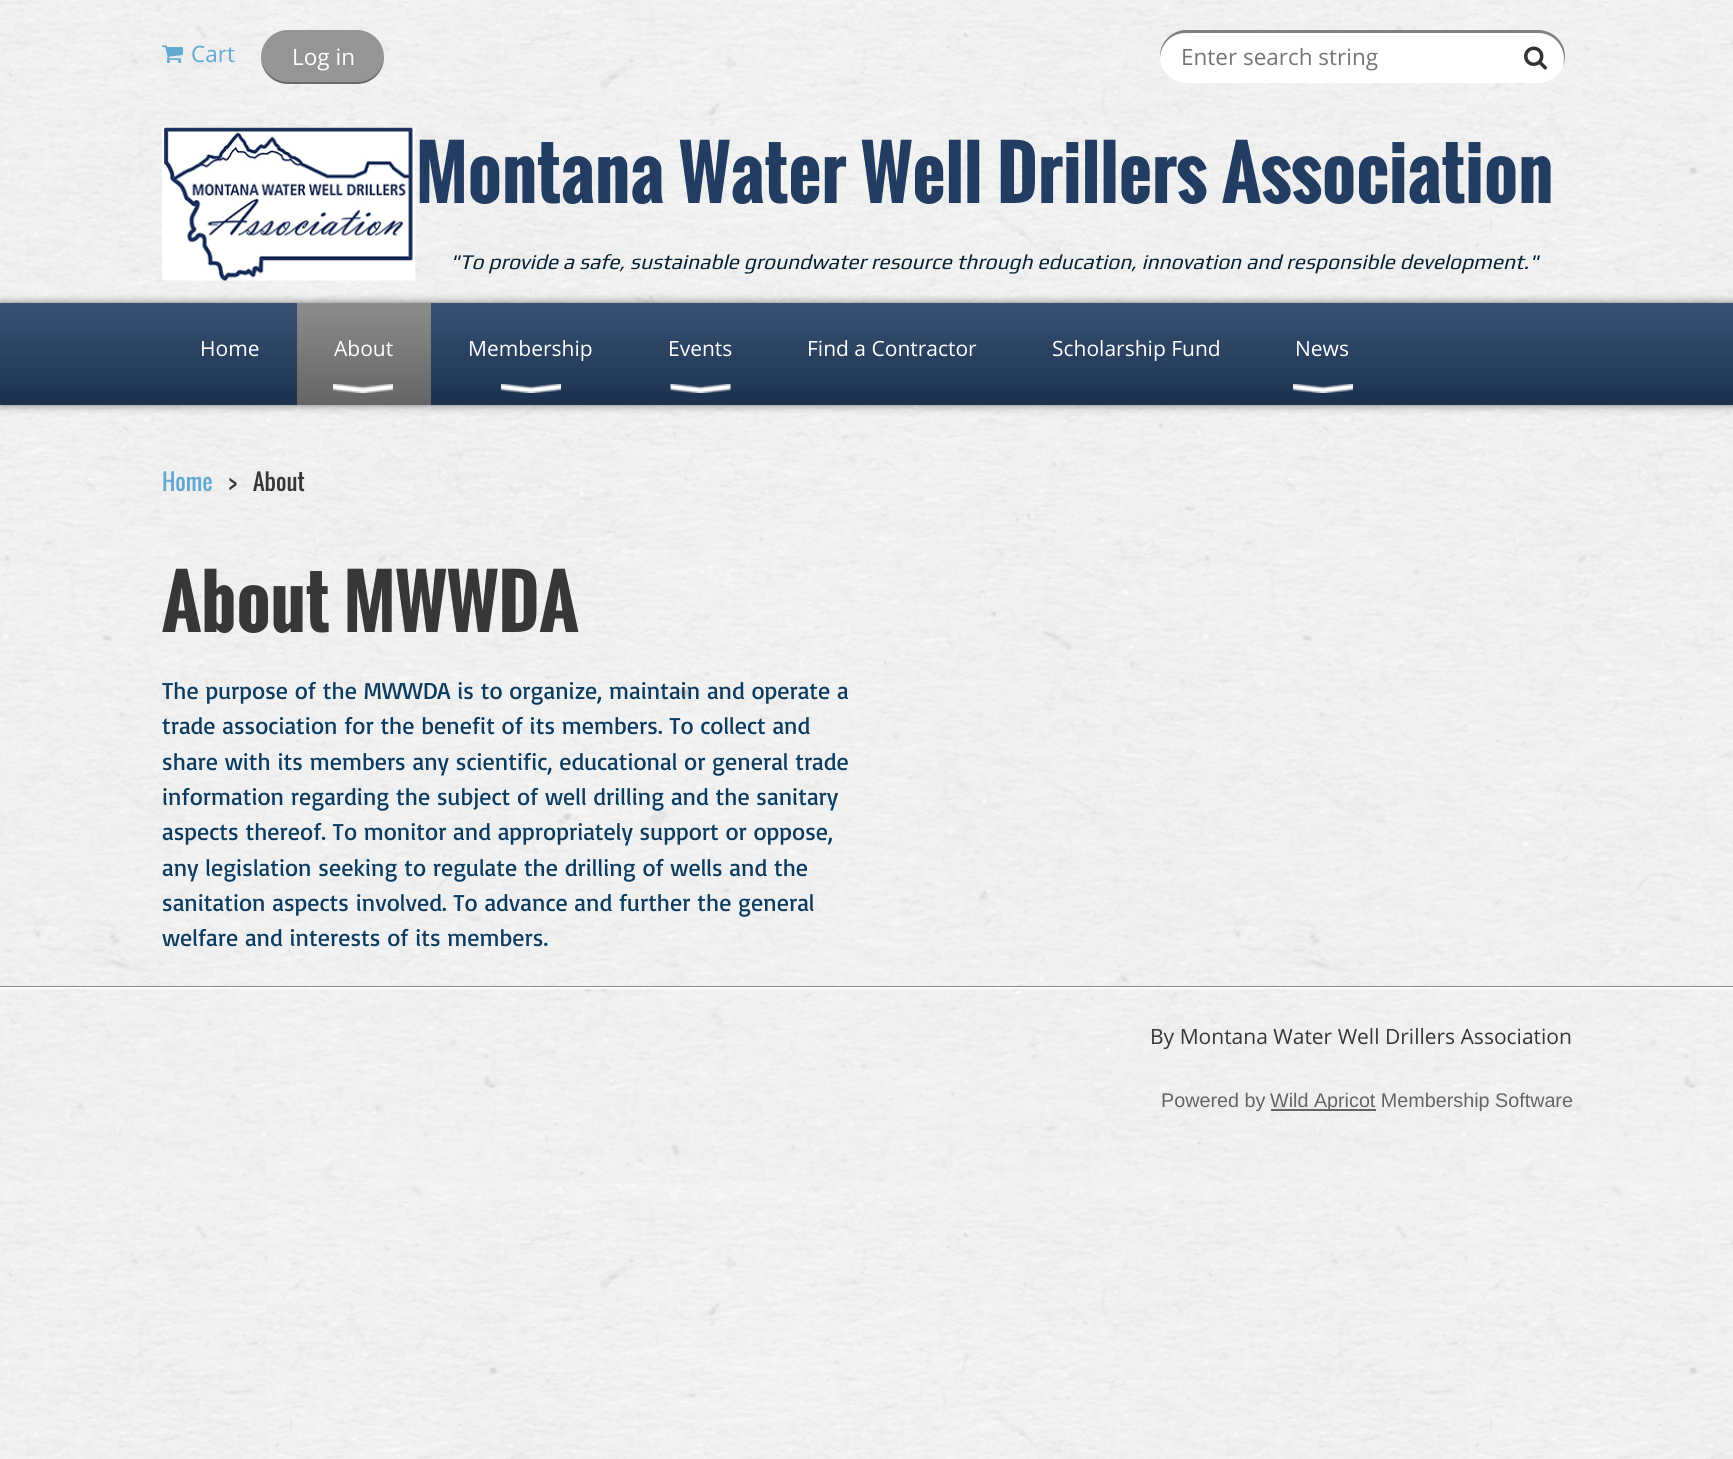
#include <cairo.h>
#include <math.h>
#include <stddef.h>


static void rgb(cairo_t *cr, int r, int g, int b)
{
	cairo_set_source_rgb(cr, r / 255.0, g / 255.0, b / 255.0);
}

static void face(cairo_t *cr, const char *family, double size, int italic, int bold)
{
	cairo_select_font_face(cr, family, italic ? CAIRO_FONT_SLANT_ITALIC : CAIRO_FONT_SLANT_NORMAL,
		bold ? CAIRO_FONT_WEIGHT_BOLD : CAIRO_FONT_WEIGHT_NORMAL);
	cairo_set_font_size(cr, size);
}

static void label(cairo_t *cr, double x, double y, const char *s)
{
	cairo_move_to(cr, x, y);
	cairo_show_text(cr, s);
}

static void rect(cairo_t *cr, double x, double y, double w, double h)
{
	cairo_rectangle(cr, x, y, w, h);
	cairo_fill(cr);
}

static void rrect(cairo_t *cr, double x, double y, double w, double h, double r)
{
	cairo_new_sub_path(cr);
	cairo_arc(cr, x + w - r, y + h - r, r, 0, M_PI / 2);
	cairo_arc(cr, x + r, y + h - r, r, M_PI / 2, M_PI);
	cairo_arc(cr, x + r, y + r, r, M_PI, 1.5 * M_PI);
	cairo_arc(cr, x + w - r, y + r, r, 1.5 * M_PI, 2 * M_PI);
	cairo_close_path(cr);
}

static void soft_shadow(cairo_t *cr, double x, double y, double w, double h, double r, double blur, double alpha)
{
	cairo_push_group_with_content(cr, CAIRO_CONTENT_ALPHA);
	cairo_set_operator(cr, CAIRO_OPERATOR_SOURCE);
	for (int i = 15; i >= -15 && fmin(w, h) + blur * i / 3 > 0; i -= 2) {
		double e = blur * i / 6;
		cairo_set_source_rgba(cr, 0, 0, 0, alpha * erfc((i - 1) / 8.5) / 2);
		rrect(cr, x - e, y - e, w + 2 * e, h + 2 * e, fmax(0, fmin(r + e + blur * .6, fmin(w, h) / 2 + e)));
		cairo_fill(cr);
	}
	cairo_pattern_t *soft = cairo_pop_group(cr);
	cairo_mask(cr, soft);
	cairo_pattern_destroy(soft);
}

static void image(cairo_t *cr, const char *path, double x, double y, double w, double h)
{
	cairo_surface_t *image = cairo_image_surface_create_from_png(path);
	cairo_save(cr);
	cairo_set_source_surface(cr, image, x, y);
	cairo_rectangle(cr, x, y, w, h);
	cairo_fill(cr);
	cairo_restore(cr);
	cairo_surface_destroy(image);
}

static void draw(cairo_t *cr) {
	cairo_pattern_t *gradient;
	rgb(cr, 255, 255, 255);
	cairo_paint(cr);
	image(cr, "image0.png", 0, 0, 1733, 1459);
	image(cr, "image1.png", 162, 45, 21, 19);
	face(cr, "Open Sans", 22.5, 0, 0);
	rgb(cr, 97, 169, 210);
	label(cr, 191, 62, "Cart");
	rgb(cr, 149, 149, 149);
	rrect(cr, 261, 30, 123, 54, 27);
	cairo_fill(cr);
	cairo_set_source_rgba(cr, 0, 0, 0, 0.3);
	cairo_new_path(cr);
	cairo_move_to(cr, 261, 56);
	cairo_line_to(cr, 261, 57);
	cairo_curve_to(cr, 261, 72, 273, 84, 288, 84);
	cairo_line_to(cr, 357, 84);
	cairo_curve_to(cr, 372, 84, 384, 72, 384, 57);
	cairo_line_to(cr, 384, 56);
	cairo_curve_to(cr, 384, 70, 372, 82, 357, 82);
	cairo_line_to(cr, 288, 82);
	cairo_curve_to(cr, 273, 82, 261, 70, 261, 56);
	cairo_close_path(cr);
	cairo_fill(cr);
	rgb(cr, 255, 255, 255);
	label(cr, 292, 65, "Log in");
	rrect(cr, 1160, 30, 405, 53, 26.5);
	cairo_fill(cr);
	cairo_set_source_rgba(cr, 0, 0, 0, 0.5);
	cairo_new_path(cr);
	cairo_move_to(cr, 1186, 33);
	cairo_line_to(cr, 1538, 33);
	cairo_curve_to(cr, 1553, 33, 1564, 45, 1564, 59);
	cairo_line_to(cr, 1563, 67);
	cairo_curve_to(cr, 1564, 63, 1565, 60, 1565, 56);
	cairo_curve_to(cr, 1565, 42, 1553, 30, 1538, 30);
	cairo_line_to(cr, 1186, 30);
	cairo_curve_to(cr, 1172, 30, 1160, 42, 1160, 56);
	cairo_line_to(cr, 1160, 58);
	cairo_curve_to(cr, 1161, 44, 1171, 33, 1186, 33);
	cairo_close_path(cr);
	cairo_fill(cr);
	rgb(cr, 117, 117, 117);
	label(cr, 1181, 65, "Enter search string");
	image(cr, "image2.png", 1524, 46, 23, 24);
	image(cr, "image3.png", 162, 127, 254, 154);
	face(cr, "Oswald", 72, 0, 1);
	rgb(cr, 34, 61, 97);
	label(cr, 416, 203, "Montana Water Well Drillers Association");
	face(cr, "Play", 21, 1, 0);
	rgb(cr, 6, 33, 52);
	label(cr, 450, 269, "\"To provide a safe, sustainable groundwater resource through education, innovation and responsible development.\"");
	rgb(cr, 0, 0, 0);
	soft_shadow(cr, 0, 303, 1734, 102, 0, 4.5, 0.5);
	gradient = cairo_pattern_create_linear(867, 303, 867, 405);
	cairo_pattern_add_color_stop_rgba(gradient, 0, 0.224, 0.322, 0.455, 1);
	cairo_pattern_add_color_stop_rgba(gradient, 1, 0.106, 0.192, 0.306, 1);
	cairo_set_source(cr, gradient);
	cairo_pattern_destroy(gradient);
	rect(cr, 0, 303, 1733, 102);
	face(cr, "Open Sans", 21, 0, 0);
	rgb(cr, 255, 255, 255);
	label(cr, 200, 356, "Home");
	gradient = cairo_pattern_create_linear(364, 303, 364, 405);
	cairo_pattern_add_color_stop_rgba(gradient, 0, 0.549, 0.549, 0.549, 1);
	cairo_pattern_add_color_stop_rgba(gradient, 1, 0.396, 0.396, 0.396, 1);
	cairo_set_source(cr, gradient);
	cairo_pattern_destroy(gradient);
	rect(cr, 297, 303, 134, 102);
	rgb(cr, 255, 255, 255);
	label(cr, 334, 356, "About");
	image(cr, "image4.png", 333, 384, 60, 9);
	label(cr, 468, 356, "Membership");
	image(cr, "image5.png", 501, 384, 60, 9);
	label(cr, 668, 356, "Events");
	image(cr, "image6.png", 670, 384, 61, 9);
	label(cr, 807, 356, "Find a Contractor");
	label(cr, 1052, 356, "Scholarship Fund");
	label(cr, 1295, 356, "News");
	image(cr, "image7.png", 1293, 384, 60, 9);
	face(cr, "Oswald", 22.5, 0, 0);
	rgb(cr, 97, 169, 210);
	label(cr, 162, 491, "Home");
	rgb(cr, 55, 55, 55);
	label(cr, 228, 491, ">");
	label(cr, 253, 491, "About");
	face(cr, "Oswald", 72, 0, 1);
	label(cr, 162, 632, "About MWWDA");
	face(cr, "Basic", 24, 0, 0);
	rgb(cr, 12, 60, 96);
	label(cr, 162, 699, "The purpose of the MWWDA is to organize, maintain and operate a");
	label(cr, 162, 734, "trade association for the benefit of its members. To collect and");
	label(cr, 162, 770, "share with its members any scientific, educational or general trade");
	label(cr, 162, 805, "information regarding the subject of well drilling and the sanitary");
	label(cr, 162, 840, "aspects thereof. To monitor and appropriately support or oppose,");
	label(cr, 162, 876, "any legislation seeking to regulate the drilling of wells and the");
	label(cr, 162, 911, "sanitation aspects involved. To advance and further the general");
	label(cr, 162, 946, "welfare and interests of its members.");
	rgb(cr, 141, 141, 141);
	rect(cr, 0, 986, 1733, 1);
	rgb(cr, 255, 255, 255);
	rect(cr, 0, 987, 1733, 2);
	face(cr, "Open Sans", 21, 0, 0);
	rgb(cr, 55, 55, 55);
	label(cr, 1150, 1044, "By Montana Water Well Drillers Association");
	face(cr, "Liberation Sans", 19.75, 0, 0);
	rgb(cr, 100, 100, 100);
	label(cr, 1161, 1107, "Powered by");
	rect(cr, 1271, 1109, 105, 2);
	label(cr, 1270, 1107, "Wild Apricot Membership Software");
}

int main(void) {
	cairo_surface_t *surface = cairo_image_surface_create(CAIRO_FORMAT_RGB24, 1733, 1459);
	cairo_t *cr = cairo_create(surface);
	cairo_font_options_t *options = cairo_font_options_create();
	cairo_font_options_set_hint_metrics(options, CAIRO_HINT_METRICS_OFF);
	cairo_font_options_set_hint_style(options, CAIRO_HINT_STYLE_NONE);
	cairo_set_font_options(cr, options);
	cairo_set_miter_limit(cr, 4);
	draw(cr);
	cairo_surface_write_to_png(surface, "render.png");
	cairo_font_options_destroy(options);
	cairo_destroy(cr);
	cairo_surface_destroy(surface);
	return 0;
}
